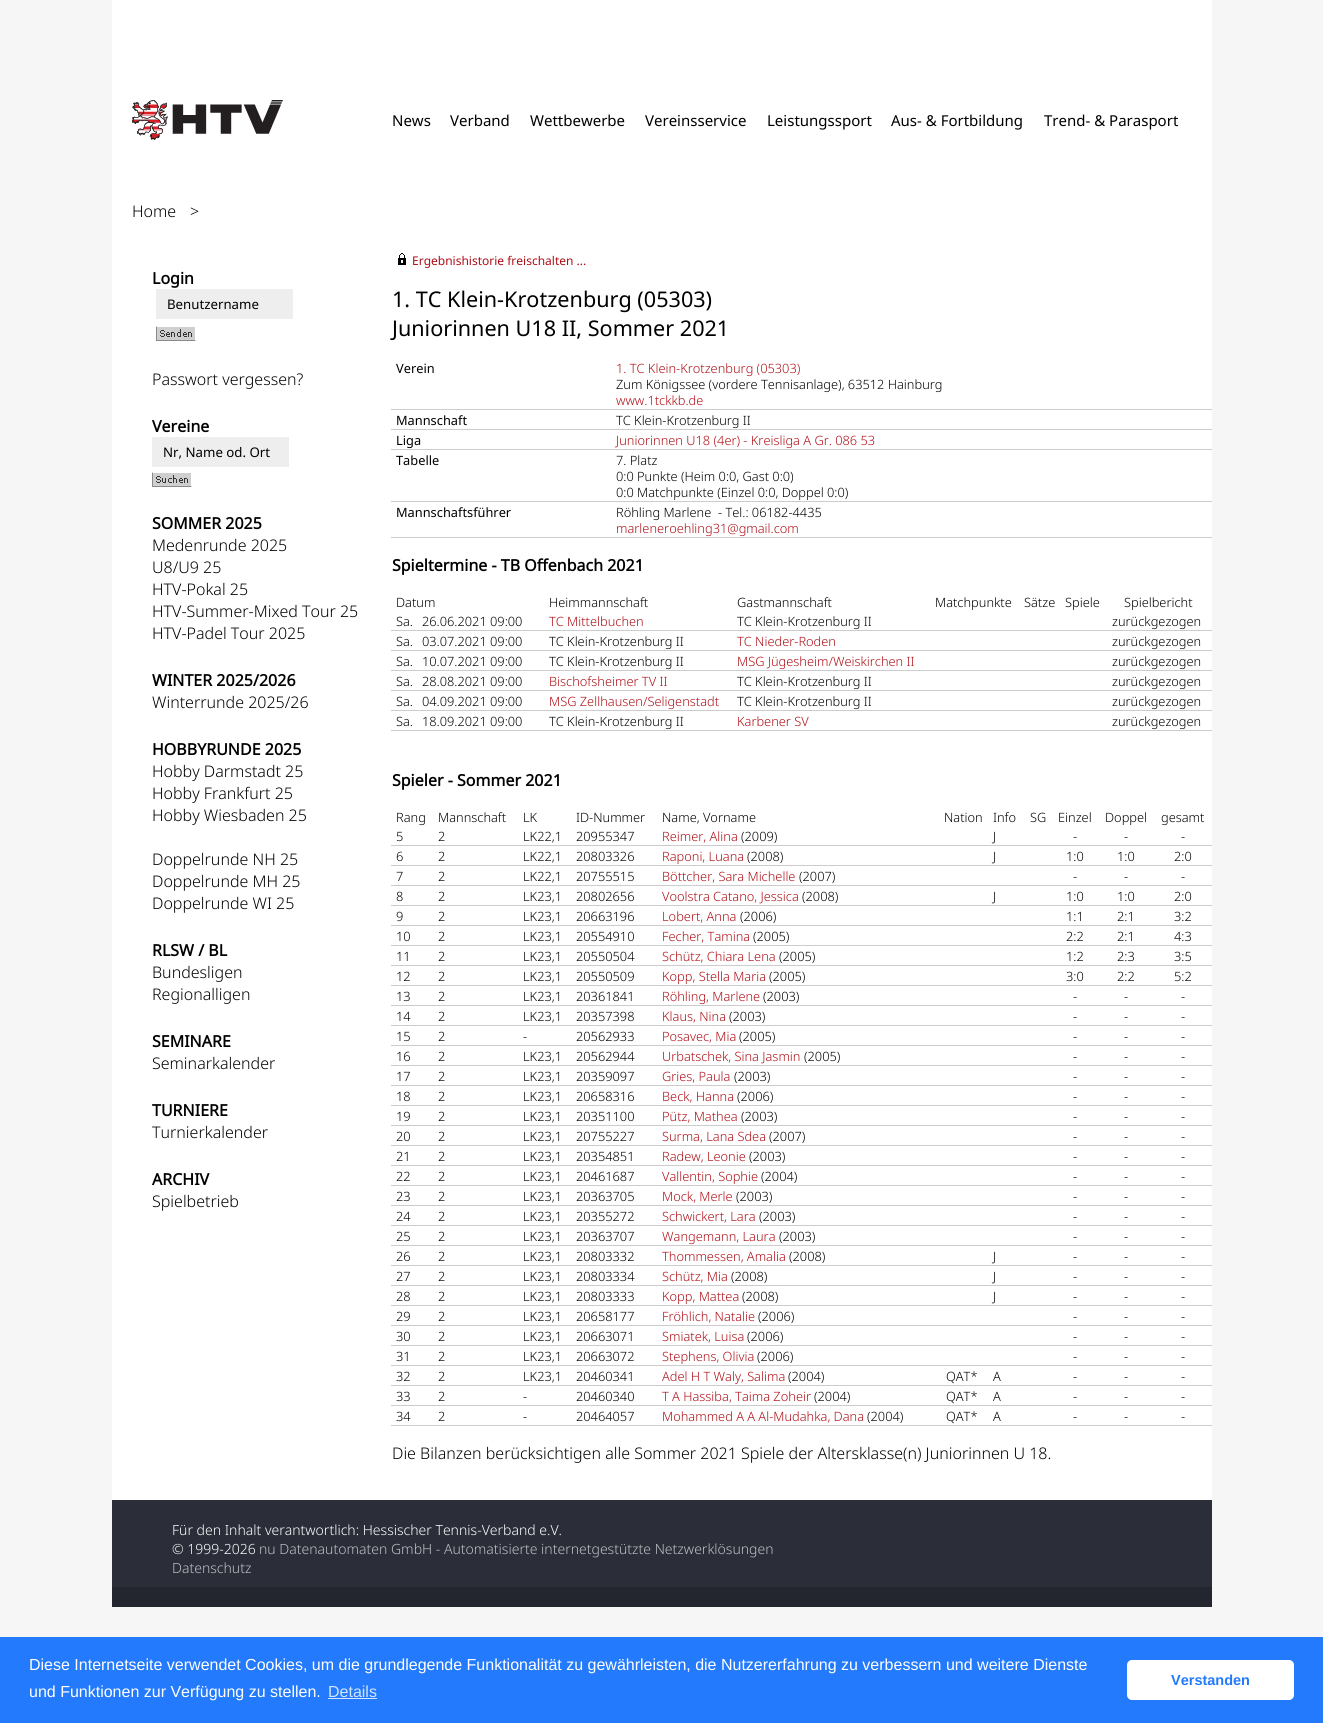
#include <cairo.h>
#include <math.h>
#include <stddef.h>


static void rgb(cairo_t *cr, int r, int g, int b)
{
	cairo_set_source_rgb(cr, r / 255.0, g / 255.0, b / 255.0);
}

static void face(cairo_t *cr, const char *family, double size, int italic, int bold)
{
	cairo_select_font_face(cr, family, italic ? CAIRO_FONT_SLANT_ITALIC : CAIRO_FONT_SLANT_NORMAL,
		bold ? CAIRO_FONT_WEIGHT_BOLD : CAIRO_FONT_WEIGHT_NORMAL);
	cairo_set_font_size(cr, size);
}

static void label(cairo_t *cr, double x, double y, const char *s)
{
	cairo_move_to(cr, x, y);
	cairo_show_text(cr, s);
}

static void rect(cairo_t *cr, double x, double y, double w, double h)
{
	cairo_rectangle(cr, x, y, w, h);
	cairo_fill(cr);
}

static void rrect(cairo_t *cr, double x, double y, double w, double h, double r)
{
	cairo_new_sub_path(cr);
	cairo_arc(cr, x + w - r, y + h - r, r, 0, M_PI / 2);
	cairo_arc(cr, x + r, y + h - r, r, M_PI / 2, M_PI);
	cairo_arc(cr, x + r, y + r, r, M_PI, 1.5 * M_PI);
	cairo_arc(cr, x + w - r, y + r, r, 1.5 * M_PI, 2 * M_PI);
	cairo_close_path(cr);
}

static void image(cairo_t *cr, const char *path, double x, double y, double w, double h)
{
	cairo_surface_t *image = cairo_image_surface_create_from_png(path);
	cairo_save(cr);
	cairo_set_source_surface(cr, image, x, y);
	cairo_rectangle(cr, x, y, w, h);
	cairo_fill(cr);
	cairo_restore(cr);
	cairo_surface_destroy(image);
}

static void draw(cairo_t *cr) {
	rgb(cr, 246, 246, 246);
	cairo_paint(cr);
	rgb(cr, 255, 255, 255);
	rect(cr, 112, 0, 1100, 1500);
	image(cr, "image0.png", 132, 100, 151, 40);
	face(cr, "Noto Sans", 15, 0, 0);
	rgb(cr, 0, 0, 0);
	label(cr, 392, 126, "News");
	label(cr, 450, 126, "Verband");
	label(cr, 530, 126, "Wettbewerbe");
	label(cr, 645, 126, "Vereinsservice");
	label(cr, 767, 126, "Leistungssport");
	label(cr, 891, 126, "Aus- & Fortbildung");
	label(cr, 1044, 126, "Trend- & Parasport");
	face(cr, "Noto Sans Light", 16, 0, 0);
	label(cr, 132, 217, "Home");
	label(cr, 190, 217, ">");
	face(cr, "Noto Sans", 16, 0, 1);
	label(cr, 152, 284, "Login");
	rgb(cr, 238, 238, 238);
	rect(cr, 156, 289, 137, 30);
	face(cr, "Noto Sans", 13.25, 0, 0);
	rgb(cr, 0, 0, 0);
	label(cr, 167, 309, "Benutzername");
	image(cr, "image1.png", 156, 326, 40, 15);
	face(cr, "Noto Sans Light", 16, 0, 0);
	label(cr, 152, 385, "Passwort vergessen?");
	face(cr, "Noto Sans", 16, 0, 1);
	label(cr, 152, 432, "Vereine");
	rgb(cr, 238, 238, 238);
	rect(cr, 152, 437, 137, 30);
	face(cr, "Noto Sans", 13.25, 0, 0);
	rgb(cr, 0, 0, 0);
	label(cr, 163, 457, "Nr, Name od. Ort");
	image(cr, "image2.png", 152, 472, 40, 15);
	face(cr, "Noto Sans", 16, 0, 1);
	label(cr, 152, 529, "SOMMER 2025");
	face(cr, "Noto Sans Light", 16, 0, 0);
	label(cr, 152, 551, "Medenrunde 2025");
	label(cr, 152, 573, "U8/U9 25");
	label(cr, 152, 595, "HTV-Pokal 25");
	label(cr, 152, 617, "HTV-Summer-Mixed Tour 25");
	label(cr, 152, 639, "HTV-Padel Tour 2025");
	face(cr, "Noto Sans", 16, 0, 1);
	label(cr, 152, 686, "WINTER 2025/2026");
	face(cr, "Noto Sans Light", 16, 0, 0);
	label(cr, 152, 708, "Winterrunde 2025/26");
	face(cr, "Noto Sans", 16, 0, 1);
	label(cr, 152, 755, "HOBBYRUNDE 2025");
	face(cr, "Noto Sans Light", 16, 0, 0);
	label(cr, 152, 777, "Hobby Darmstadt 25");
	label(cr, 152, 799, "Hobby Frankfurt 25");
	label(cr, 152, 821, "Hobby Wiesbaden 25");
	label(cr, 152, 865, "Doppelrunde NH 25");
	label(cr, 152, 887, "Doppelrunde MH 25");
	label(cr, 152, 909, "Doppelrunde WI 25");
	face(cr, "Noto Sans", 16, 0, 1);
	label(cr, 152, 956, "RLSW / BL");
	face(cr, "Noto Sans Light", 16, 0, 0);
	label(cr, 152, 978, "Bundesligen");
	label(cr, 152, 1000, "Regionalligen");
	face(cr, "Noto Sans", 16, 0, 1);
	label(cr, 152, 1047, "SEMINARE");
	face(cr, "Noto Sans Light", 16, 0, 0);
	label(cr, 152, 1069, "Seminarkalender");
	face(cr, "Noto Sans", 16, 0, 1);
	label(cr, 152, 1116, "TURNIERE");
	face(cr, "Noto Sans Light", 16, 0, 0);
	label(cr, 152, 1138, "Turnierkalender");
	face(cr, "Noto Sans", 16, 0, 1);
	label(cr, 152, 1185, "ARCHIV");
	face(cr, "Noto Sans Light", 16, 0, 0);
	label(cr, 152, 1207, "Spielbetrieb");
	image(cr, "image3.png", 398, 253, 8, 12);
	face(cr, "Noto Sans", 12, 0, 0);
	rgb(cr, 174, 14, 22);
	label(cr, 412, 265, "Ergebnishistorie freischalten ...");
	face(cr, "Noto Sans", 21.6, 0, 0);
	rgb(cr, 0, 0, 0);
	label(cr, 392, 307, "1. TC Klein-Krotzenburg (05303)");
	label(cr, 392, 336, "Juniorinnen U18 II, Sommer 2021");
	face(cr, "Noto Sans", 12.8, 0, 0);
	label(cr, 396, 373, "Verein");
	rgb(cr, 204, 204, 204);
	rect(cr, 391, 409, 821, 1);
	face(cr, "Noto Sans Light", 12.8, 0, 0);
	rgb(cr, 174, 14, 22);
	label(cr, 616, 373, "1. TC Klein-Krotzenburg (05303)");
	rgb(cr, 0, 0, 0);
	label(cr, 616, 389, "Zum Königssee (vordere Tennisanlage), 63512 Hainburg");
	rgb(cr, 174, 14, 22);
	label(cr, 616, 405, "www.1tckkb.de");
	face(cr, "Noto Sans", 12.8, 0, 0);
	rgb(cr, 0, 0, 0);
	label(cr, 396, 425, "Mannschaft");
	rgb(cr, 204, 204, 204);
	rect(cr, 391, 429, 821, 1);
	face(cr, "Noto Sans Light", 12.8, 0, 0);
	rgb(cr, 0, 0, 0);
	label(cr, 616, 425, "TC Klein-Krotzenburg II");
	face(cr, "Noto Sans", 12.8, 0, 0);
	label(cr, 396, 445, "Liga");
	rgb(cr, 204, 204, 204);
	rect(cr, 391, 449, 821, 1);
	face(cr, "Noto Sans Light", 12.8, 0, 0);
	rgb(cr, 174, 14, 22);
	label(cr, 616, 445, "Juniorinnen U18 (4er) - Kreisliga A Gr. 086 53");
	face(cr, "Noto Sans", 12.8, 0, 0);
	rgb(cr, 0, 0, 0);
	label(cr, 396, 465, "Tabelle");
	rgb(cr, 204, 204, 204);
	rect(cr, 391, 501, 821, 1);
	face(cr, "Noto Sans Light", 12.8, 0, 0);
	rgb(cr, 0, 0, 0);
	label(cr, 616, 465, "7. Platz");
	label(cr, 616, 481, "0:0 Punkte (Heim 0:0, Gast 0:0)");
	label(cr, 616, 497, "0:0 Matchpunkte (Einzel 0:0, Doppel 0:0)");
	face(cr, "Noto Sans", 12.8, 0, 0);
	label(cr, 396, 517, "Mannschaftsführer");
	rgb(cr, 204, 204, 204);
	rect(cr, 391, 537, 821, 1);
	face(cr, "Noto Sans Light", 12.8, 0, 0);
	rgb(cr, 0, 0, 0);
	label(cr, 616, 517, "Röhling Marlene");
	label(cr, 718, 517, "- Tel.: 06182-4435");
	rgb(cr, 174, 14, 22);
	label(cr, 616, 533, "marleneroehling31@gmail.com");
	face(cr, "Noto Sans", 16, 0, 1);
	rgb(cr, 0, 0, 0);
	label(cr, 392, 571, "Spieltermine - TB Offenbach 2021");
	face(cr, "Noto Sans Light", 12.8, 0, 0);
	label(cr, 396, 607, "Datum");
	label(cr, 549, 607, "Heimmannschaft");
	label(cr, 737, 607, "Gastmannschaft");
	label(cr, 935, 607, "Matchpunkte");
	label(cr, 1024, 607, "Sätze");
	label(cr, 1065, 607, "Spiele");
	label(cr, 1124, 607, "Spielbericht");
	label(cr, 396, 626, "Sa.");
	label(cr, 422, 626, "26.06.2021 09:00");
	rgb(cr, 174, 14, 22);
	label(cr, 549, 626, "TC Mittelbuchen");
	rgb(cr, 0, 0, 0);
	label(cr, 737, 626, "TC Klein-Krotzenburg II");
	rgb(cr, 204, 204, 204);
	rect(cr, 391, 630, 821, 1);
	rgb(cr, 0, 0, 0);
	label(cr, 1112, 626, "zurückgezogen");
	label(cr, 396, 646, "Sa.");
	label(cr, 422, 646, "03.07.2021 09:00");
	label(cr, 549, 646, "TC Klein-Krotzenburg II");
	rgb(cr, 174, 14, 22);
	label(cr, 737, 646, "TC Nieder-Roden");
	rgb(cr, 204, 204, 204);
	rect(cr, 391, 650, 821, 1);
	rgb(cr, 0, 0, 0);
	label(cr, 1112, 646, "zurückgezogen");
	label(cr, 396, 666, "Sa.");
	label(cr, 422, 666, "10.07.2021 09:00");
	label(cr, 549, 666, "TC Klein-Krotzenburg II");
	rgb(cr, 174, 14, 22);
	label(cr, 737, 666, "MSG Jügesheim/Weiskirchen II");
	rgb(cr, 204, 204, 204);
	rect(cr, 391, 670, 821, 1);
	rgb(cr, 0, 0, 0);
	label(cr, 1112, 666, "zurückgezogen");
	label(cr, 396, 686, "Sa.");
	label(cr, 422, 686, "28.08.2021 09:00");
	rgb(cr, 174, 14, 22);
	label(cr, 549, 686, "Bischofsheimer TV II");
	rgb(cr, 0, 0, 0);
	label(cr, 737, 686, "TC Klein-Krotzenburg II");
	rgb(cr, 204, 204, 204);
	rect(cr, 391, 690, 821, 1);
	rgb(cr, 0, 0, 0);
	label(cr, 1112, 686, "zurückgezogen");
	label(cr, 396, 706, "Sa.");
	label(cr, 422, 706, "04.09.2021 09:00");
	rgb(cr, 174, 14, 22);
	label(cr, 549, 706, "MSG Zellhausen/Seligenstadt");
	rgb(cr, 0, 0, 0);
	label(cr, 737, 706, "TC Klein-Krotzenburg II");
	rgb(cr, 204, 204, 204);
	rect(cr, 391, 710, 821, 1);
	rgb(cr, 0, 0, 0);
	label(cr, 1112, 706, "zurückgezogen");
	label(cr, 396, 726, "Sa.");
	label(cr, 422, 726, "18.09.2021 09:00");
	label(cr, 549, 726, "TC Klein-Krotzenburg II");
	rgb(cr, 174, 14, 22);
	label(cr, 737, 726, "Karbener SV");
	rgb(cr, 204, 204, 204);
	rect(cr, 391, 730, 821, 1);
	rgb(cr, 0, 0, 0);
	label(cr, 1112, 726, "zurückgezogen");
	face(cr, "Noto Sans", 16, 0, 1);
	label(cr, 392, 786, "Spieler - Sommer 2021");
	face(cr, "Noto Sans Light", 12.8, 0, 0);
	label(cr, 396, 822, "Rang");
	label(cr, 438, 822, "Mannschaft");
	label(cr, 523, 822, "LK");
	label(cr, 576, 822, "ID-Nummer");
	label(cr, 662, 822, "Name, Vorname");
	label(cr, 944, 822, "Nation");
	label(cr, 993, 822, "Info");
	label(cr, 1030, 822, "SG");
	label(cr, 1058, 822, "Einzel");
	label(cr, 1105, 822, "Doppel");
	label(cr, 1161, 822, "gesamt");
	label(cr, 396, 841, "5");
	label(cr, 438, 841, "2");
	label(cr, 523, 841, "LK22,1");
	label(cr, 576, 841, "20955347");
	rgb(cr, 174, 14, 22);
	label(cr, 662, 841, "Reimer, Alina");
	rgb(cr, 0, 0, 0);
	label(cr, 741, 841, "(2009)");
	label(cr, 993, 841, "J");
	label(cr, 1073, 841, "-");
	label(cr, 1124, 841, "-");
	rgb(cr, 204, 204, 204);
	rect(cr, 391, 845, 821, 1);
	rgb(cr, 0, 0, 0);
	label(cr, 1181, 841, "-");
	label(cr, 396, 861, "6");
	label(cr, 438, 861, "2");
	label(cr, 523, 861, "LK22,1");
	label(cr, 576, 861, "20803326");
	rgb(cr, 174, 14, 22);
	label(cr, 662, 861, "Raponi, Luana");
	rgb(cr, 0, 0, 0);
	label(cr, 747, 861, "(2008)");
	label(cr, 993, 861, "J");
	label(cr, 1066, 861, "1:0");
	label(cr, 1117, 861, "1:0");
	rgb(cr, 204, 204, 204);
	rect(cr, 391, 865, 821, 1);
	rgb(cr, 0, 0, 0);
	label(cr, 1174, 861, "2:0");
	label(cr, 396, 881, "7");
	label(cr, 438, 881, "2");
	label(cr, 523, 881, "LK22,1");
	label(cr, 576, 881, "20755515");
	rgb(cr, 174, 14, 22);
	label(cr, 662, 881, "Böttcher, Sara Michelle");
	rgb(cr, 0, 0, 0);
	label(cr, 799, 881, "(2007)");
	label(cr, 1073, 881, "-");
	label(cr, 1124, 881, "-");
	rgb(cr, 204, 204, 204);
	rect(cr, 391, 885, 821, 1);
	rgb(cr, 0, 0, 0);
	label(cr, 1181, 881, "-");
	label(cr, 396, 901, "8");
	label(cr, 438, 901, "2");
	label(cr, 523, 901, "LK23,1");
	label(cr, 576, 901, "20802656");
	rgb(cr, 174, 14, 22);
	label(cr, 662, 901, "Voolstra Catano, Jessica");
	rgb(cr, 0, 0, 0);
	label(cr, 802, 901, "(2008)");
	label(cr, 993, 901, "J");
	label(cr, 1066, 901, "1:0");
	label(cr, 1117, 901, "1:0");
	rgb(cr, 204, 204, 204);
	rect(cr, 391, 905, 821, 1);
	rgb(cr, 0, 0, 0);
	label(cr, 1174, 901, "2:0");
	label(cr, 396, 921, "9");
	label(cr, 438, 921, "2");
	label(cr, 523, 921, "LK23,1");
	label(cr, 576, 921, "20663196");
	rgb(cr, 174, 14, 22);
	label(cr, 662, 921, "Lobert, Anna");
	rgb(cr, 0, 0, 0);
	label(cr, 740, 921, "(2006)");
	label(cr, 1066, 921, "1:1");
	label(cr, 1117, 921, "2:1");
	rgb(cr, 204, 204, 204);
	rect(cr, 391, 925, 821, 1);
	rgb(cr, 0, 0, 0);
	label(cr, 1174, 921, "3:2");
	label(cr, 396, 941, "10");
	label(cr, 438, 941, "2");
	label(cr, 523, 941, "LK23,1");
	label(cr, 576, 941, "20554910");
	rgb(cr, 174, 14, 22);
	label(cr, 662, 941, "Fecher, Tamina");
	rgb(cr, 0, 0, 0);
	label(cr, 753, 941, "(2005)");
	label(cr, 1066, 941, "2:2");
	label(cr, 1117, 941, "2:1");
	rgb(cr, 204, 204, 204);
	rect(cr, 391, 945, 821, 1);
	rgb(cr, 0, 0, 0);
	label(cr, 1174, 941, "4:3");
	label(cr, 396, 961, "11");
	label(cr, 438, 961, "2");
	label(cr, 523, 961, "LK23,1");
	label(cr, 576, 961, "20550504");
	rgb(cr, 174, 14, 22);
	label(cr, 662, 961, "Schütz, Chiara Lena");
	rgb(cr, 0, 0, 0);
	label(cr, 779, 961, "(2005)");
	label(cr, 1066, 961, "1:2");
	label(cr, 1117, 961, "2:3");
	rgb(cr, 204, 204, 204);
	rect(cr, 391, 965, 821, 1);
	rgb(cr, 0, 0, 0);
	label(cr, 1174, 961, "3:5");
	label(cr, 396, 981, "12");
	label(cr, 438, 981, "2");
	label(cr, 523, 981, "LK23,1");
	label(cr, 576, 981, "20550509");
	rgb(cr, 174, 14, 22);
	label(cr, 662, 981, "Kopp, Stella Maria");
	rgb(cr, 0, 0, 0);
	label(cr, 769, 981, "(2005)");
	label(cr, 1066, 981, "3:0");
	label(cr, 1117, 981, "2:2");
	rgb(cr, 204, 204, 204);
	rect(cr, 391, 985, 821, 1);
	rgb(cr, 0, 0, 0);
	label(cr, 1174, 981, "5:2");
	label(cr, 396, 1001, "13");
	label(cr, 438, 1001, "2");
	label(cr, 523, 1001, "LK23,1");
	label(cr, 576, 1001, "20361841");
	rgb(cr, 174, 14, 22);
	label(cr, 662, 1001, "Röhling, Marlene");
	rgb(cr, 0, 0, 0);
	label(cr, 763, 1001, "(2003)");
	label(cr, 1073, 1001, "-");
	label(cr, 1124, 1001, "-");
	rgb(cr, 204, 204, 204);
	rect(cr, 391, 1005, 821, 1);
	rgb(cr, 0, 0, 0);
	label(cr, 1181, 1001, "-");
	label(cr, 396, 1021, "14");
	label(cr, 438, 1021, "2");
	label(cr, 523, 1021, "LK23,1");
	label(cr, 576, 1021, "20357398");
	rgb(cr, 174, 14, 22);
	label(cr, 662, 1021, "Klaus, Nina");
	rgb(cr, 0, 0, 0);
	label(cr, 729, 1021, "(2003)");
	label(cr, 1073, 1021, "-");
	label(cr, 1124, 1021, "-");
	rgb(cr, 204, 204, 204);
	rect(cr, 391, 1025, 821, 1);
	rgb(cr, 0, 0, 0);
	label(cr, 1181, 1021, "-");
	label(cr, 396, 1041, "15");
	label(cr, 438, 1041, "2");
	label(cr, 523, 1041, "-");
	label(cr, 576, 1041, "20562933");
	rgb(cr, 174, 14, 22);
	label(cr, 662, 1041, "Posavec, Mia");
	rgb(cr, 0, 0, 0);
	label(cr, 739, 1041, "(2005)");
	label(cr, 1073, 1041, "-");
	label(cr, 1124, 1041, "-");
	rgb(cr, 204, 204, 204);
	rect(cr, 391, 1045, 821, 1);
	rgb(cr, 0, 0, 0);
	label(cr, 1181, 1041, "-");
	label(cr, 396, 1061, "16");
	label(cr, 438, 1061, "2");
	label(cr, 523, 1061, "LK23,1");
	label(cr, 576, 1061, "20562944");
	rgb(cr, 174, 14, 22);
	label(cr, 662, 1061, "Urbatschek, Sina Jasmin");
	rgb(cr, 0, 0, 0);
	label(cr, 804, 1061, "(2005)");
	label(cr, 1073, 1061, "-");
	label(cr, 1124, 1061, "-");
	rgb(cr, 204, 204, 204);
	rect(cr, 391, 1065, 821, 1);
	rgb(cr, 0, 0, 0);
	label(cr, 1181, 1061, "-");
	label(cr, 396, 1081, "17");
	label(cr, 438, 1081, "2");
	label(cr, 523, 1081, "LK23,1");
	label(cr, 576, 1081, "20359097");
	rgb(cr, 174, 14, 22);
	label(cr, 662, 1081, "Gries, Paula");
	rgb(cr, 0, 0, 0);
	label(cr, 734, 1081, "(2003)");
	label(cr, 1073, 1081, "-");
	label(cr, 1124, 1081, "-");
	rgb(cr, 204, 204, 204);
	rect(cr, 391, 1085, 821, 1);
	rgb(cr, 0, 0, 0);
	label(cr, 1181, 1081, "-");
	label(cr, 396, 1101, "18");
	label(cr, 438, 1101, "2");
	label(cr, 523, 1101, "LK23,1");
	label(cr, 576, 1101, "20658316");
	rgb(cr, 174, 14, 22);
	label(cr, 662, 1101, "Beck, Hanna");
	rgb(cr, 0, 0, 0);
	label(cr, 737, 1101, "(2006)");
	label(cr, 1073, 1101, "-");
	label(cr, 1124, 1101, "-");
	rgb(cr, 204, 204, 204);
	rect(cr, 391, 1105, 821, 1);
	rgb(cr, 0, 0, 0);
	label(cr, 1181, 1101, "-");
	label(cr, 396, 1121, "19");
	label(cr, 438, 1121, "2");
	label(cr, 523, 1121, "LK23,1");
	label(cr, 576, 1121, "20351100");
	rgb(cr, 174, 14, 22);
	label(cr, 662, 1121, "Pütz, Mathea");
	rgb(cr, 0, 0, 0);
	label(cr, 741, 1121, "(2003)");
	label(cr, 1073, 1121, "-");
	label(cr, 1124, 1121, "-");
	rgb(cr, 204, 204, 204);
	rect(cr, 391, 1125, 821, 1);
	rgb(cr, 0, 0, 0);
	label(cr, 1181, 1121, "-");
	label(cr, 396, 1141, "20");
	label(cr, 438, 1141, "2");
	label(cr, 523, 1141, "LK23,1");
	label(cr, 576, 1141, "20755227");
	rgb(cr, 174, 14, 22);
	label(cr, 662, 1141, "Surma, Lana Sdea");
	rgb(cr, 0, 0, 0);
	label(cr, 769, 1141, "(2007)");
	label(cr, 1073, 1141, "-");
	label(cr, 1124, 1141, "-");
	rgb(cr, 204, 204, 204);
	rect(cr, 391, 1145, 821, 1);
	rgb(cr, 0, 0, 0);
	label(cr, 1181, 1141, "-");
	label(cr, 396, 1161, "21");
	label(cr, 438, 1161, "2");
	label(cr, 523, 1161, "LK23,1");
	label(cr, 576, 1161, "20354851");
	rgb(cr, 174, 14, 22);
	label(cr, 662, 1161, "Radew, Leonie");
	rgb(cr, 0, 0, 0);
	label(cr, 749, 1161, "(2003)");
	label(cr, 1073, 1161, "-");
	label(cr, 1124, 1161, "-");
	rgb(cr, 204, 204, 204);
	rect(cr, 391, 1165, 821, 1);
	rgb(cr, 0, 0, 0);
	label(cr, 1181, 1161, "-");
	label(cr, 396, 1181, "22");
	label(cr, 438, 1181, "2");
	label(cr, 523, 1181, "LK23,1");
	label(cr, 576, 1181, "20461687");
	rgb(cr, 174, 14, 22);
	label(cr, 662, 1181, "Vallentin, Sophie");
	rgb(cr, 0, 0, 0);
	label(cr, 761, 1181, "(2004)");
	label(cr, 1073, 1181, "-");
	label(cr, 1124, 1181, "-");
	rgb(cr, 204, 204, 204);
	rect(cr, 391, 1185, 821, 1);
	rgb(cr, 0, 0, 0);
	label(cr, 1181, 1181, "-");
	label(cr, 396, 1201, "23");
	label(cr, 438, 1201, "2");
	label(cr, 523, 1201, "LK23,1");
	label(cr, 576, 1201, "20363705");
	rgb(cr, 174, 14, 22);
	label(cr, 662, 1201, "Mock, Merle");
	rgb(cr, 0, 0, 0);
	label(cr, 736, 1201, "(2003)");
	label(cr, 1073, 1201, "-");
	label(cr, 1124, 1201, "-");
	rgb(cr, 204, 204, 204);
	rect(cr, 391, 1205, 821, 1);
	rgb(cr, 0, 0, 0);
	label(cr, 1181, 1201, "-");
	label(cr, 396, 1221, "24");
	label(cr, 438, 1221, "2");
	label(cr, 523, 1221, "LK23,1");
	label(cr, 576, 1221, "20355272");
	rgb(cr, 174, 14, 22);
	label(cr, 662, 1221, "Schwickert, Lara");
	rgb(cr, 0, 0, 0);
	label(cr, 759, 1221, "(2003)");
	label(cr, 1073, 1221, "-");
	label(cr, 1124, 1221, "-");
	rgb(cr, 204, 204, 204);
	rect(cr, 391, 1225, 821, 1);
	rgb(cr, 0, 0, 0);
	label(cr, 1181, 1221, "-");
	label(cr, 396, 1241, "25");
	label(cr, 438, 1241, "2");
	label(cr, 523, 1241, "LK23,1");
	label(cr, 576, 1241, "20363707");
	rgb(cr, 174, 14, 22);
	label(cr, 662, 1241, "Wangemann, Laura");
	rgb(cr, 0, 0, 0);
	label(cr, 779, 1241, "(2003)");
	label(cr, 1073, 1241, "-");
	label(cr, 1124, 1241, "-");
	rgb(cr, 204, 204, 204);
	rect(cr, 391, 1245, 821, 1);
	rgb(cr, 0, 0, 0);
	label(cr, 1181, 1241, "-");
	label(cr, 396, 1261, "26");
	label(cr, 438, 1261, "2");
	label(cr, 523, 1261, "LK23,1");
	label(cr, 576, 1261, "20803332");
	rgb(cr, 174, 14, 22);
	label(cr, 662, 1261, "Thommessen, Amalia");
	rgb(cr, 0, 0, 0);
	label(cr, 789, 1261, "(2008)");
	label(cr, 993, 1261, "J");
	label(cr, 1073, 1261, "-");
	label(cr, 1124, 1261, "-");
	rgb(cr, 204, 204, 204);
	rect(cr, 391, 1265, 821, 1);
	rgb(cr, 0, 0, 0);
	label(cr, 1181, 1261, "-");
	label(cr, 396, 1281, "27");
	label(cr, 438, 1281, "2");
	label(cr, 523, 1281, "LK23,1");
	label(cr, 576, 1281, "20803334");
	rgb(cr, 174, 14, 22);
	label(cr, 662, 1281, "Schütz, Mia");
	rgb(cr, 0, 0, 0);
	label(cr, 731, 1281, "(2008)");
	label(cr, 993, 1281, "J");
	label(cr, 1073, 1281, "-");
	label(cr, 1124, 1281, "-");
	rgb(cr, 204, 204, 204);
	rect(cr, 391, 1285, 821, 1);
	rgb(cr, 0, 0, 0);
	label(cr, 1181, 1281, "-");
	label(cr, 396, 1301, "28");
	label(cr, 438, 1301, "2");
	label(cr, 523, 1301, "LK23,1");
	label(cr, 576, 1301, "20803333");
	rgb(cr, 174, 14, 22);
	label(cr, 662, 1301, "Kopp, Mattea");
	rgb(cr, 0, 0, 0);
	label(cr, 742, 1301, "(2008)");
	label(cr, 993, 1301, "J");
	label(cr, 1073, 1301, "-");
	label(cr, 1124, 1301, "-");
	rgb(cr, 204, 204, 204);
	rect(cr, 391, 1305, 821, 1);
	rgb(cr, 0, 0, 0);
	label(cr, 1181, 1301, "-");
	label(cr, 396, 1321, "29");
	label(cr, 438, 1321, "2");
	label(cr, 523, 1321, "LK23,1");
	label(cr, 576, 1321, "20658177");
	rgb(cr, 174, 14, 22);
	label(cr, 662, 1321, "Fröhlich, Natalie");
	rgb(cr, 0, 0, 0);
	label(cr, 758, 1321, "(2006)");
	label(cr, 1073, 1321, "-");
	label(cr, 1124, 1321, "-");
	rgb(cr, 204, 204, 204);
	rect(cr, 391, 1325, 821, 1);
	rgb(cr, 0, 0, 0);
	label(cr, 1181, 1321, "-");
	label(cr, 396, 1341, "30");
	label(cr, 438, 1341, "2");
	label(cr, 523, 1341, "LK23,1");
	label(cr, 576, 1341, "20663071");
	rgb(cr, 174, 14, 22);
	label(cr, 662, 1341, "Smiatek, Luisa");
	rgb(cr, 0, 0, 0);
	label(cr, 747, 1341, "(2006)");
	label(cr, 1073, 1341, "-");
	label(cr, 1124, 1341, "-");
	rgb(cr, 204, 204, 204);
	rect(cr, 391, 1345, 821, 1);
	rgb(cr, 0, 0, 0);
	label(cr, 1181, 1341, "-");
	label(cr, 396, 1361, "31");
	label(cr, 438, 1361, "2");
	label(cr, 523, 1361, "LK23,1");
	label(cr, 576, 1361, "20663072");
	rgb(cr, 174, 14, 22);
	label(cr, 662, 1361, "Stephens, Olivia");
	rgb(cr, 0, 0, 0);
	label(cr, 757, 1361, "(2006)");
	label(cr, 1073, 1361, "-");
	label(cr, 1124, 1361, "-");
	rgb(cr, 204, 204, 204);
	rect(cr, 391, 1365, 821, 1);
	rgb(cr, 0, 0, 0);
	label(cr, 1181, 1361, "-");
	label(cr, 396, 1381, "32");
	label(cr, 438, 1381, "2");
	label(cr, 523, 1381, "LK23,1");
	label(cr, 576, 1381, "20460341");
	rgb(cr, 174, 14, 22);
	label(cr, 662, 1381, "Adel H T Waly, Salima");
	rgb(cr, 0, 0, 0);
	label(cr, 788, 1381, "(2004)");
	label(cr, 946, 1381, "QAT*");
	label(cr, 993, 1381, "A");
	label(cr, 1073, 1381, "-");
	label(cr, 1124, 1381, "-");
	rgb(cr, 204, 204, 204);
	rect(cr, 391, 1385, 821, 1);
	rgb(cr, 0, 0, 0);
	label(cr, 1181, 1381, "-");
	label(cr, 396, 1401, "33");
	label(cr, 438, 1401, "2");
	label(cr, 523, 1401, "-");
	label(cr, 576, 1401, "20460340");
	rgb(cr, 174, 14, 22);
	label(cr, 662, 1401, "T A Hassiba, Taima Zoheir");
	rgb(cr, 0, 0, 0);
	label(cr, 814, 1401, "(2004)");
	label(cr, 946, 1401, "QAT*");
	label(cr, 993, 1401, "A");
	label(cr, 1073, 1401, "-");
	label(cr, 1124, 1401, "-");
	rgb(cr, 204, 204, 204);
	rect(cr, 391, 1405, 821, 1);
	rgb(cr, 0, 0, 0);
	label(cr, 1181, 1401, "-");
	label(cr, 396, 1421, "34");
	label(cr, 438, 1421, "2");
	label(cr, 523, 1421, "-");
	label(cr, 576, 1421, "20464057");
	rgb(cr, 174, 14, 22);
	label(cr, 662, 1421, "Mohammed A A Al-Mudahka, Dana");
	rgb(cr, 0, 0, 0);
	label(cr, 867, 1421, "(2004)");
	label(cr, 946, 1421, "QAT*");
	label(cr, 993, 1421, "A");
	label(cr, 1073, 1421, "-");
	label(cr, 1124, 1421, "-");
	rgb(cr, 204, 204, 204);
	rect(cr, 391, 1425, 821, 1);
	rgb(cr, 0, 0, 0);
	label(cr, 1181, 1421, "-");
	face(cr, "Noto Sans Light", 16, 0, 0);
	label(cr, 392, 1459, "Die Bilanzen berücksichtigen alle Sommer 2021 Spiele der Altersklasse(n) Juniorinnen U 18.");
	rgb(cr, 43, 46, 57);
	rect(cr, 112, 1500, 1100, 87);
	rgb(cr, 35, 38, 47);
	rect(cr, 112, 1587, 1100, 20);
	face(cr, "Noto Sans Light", 14, 0, 0);
	rgb(cr, 255, 255, 255);
	label(cr, 172, 1535, "Für den Inhalt verantwortlich: Hessischer Tennis-Verband e.V.");
	label(cr, 172, 1554, "© 1999-2026");
	rgb(cr, 191, 192, 196);
	label(cr, 259, 1554, "nu Datenautomaten GmbH - Automatisierte internetgestützte Netzwerklösungen");
	label(cr, 172, 1573, "Datenschutz");
	rgb(cr, 35, 122, 252);
	rect(cr, 0, 1637, 1323, 86);
	face(cr, "Liberation Sans", 16, 0, 0);
	rgb(cr, 255, 255, 255);
	label(cr, 29, 1670, "Diese Internetseite verwendet Cookies, um die grundlegende Funktionalität zu gewährleisten, die Nutzererfahrung zu verbessern und weitere Dienste");
	label(cr, 29, 1697, "und Funktionen zur Verfügung zu stellen.");
	rgb(cr, 211, 228, 254);
	label(cr, 328, 1697, "Details");
	rect(cr, 328, 1698, 49, 1);
	rgb(cr, 255, 255, 255);
	rrect(cr, 1127, 1660, 167, 40, 5);
	cairo_fill(cr);
	face(cr, "Liberation Sans", 14.5, 0, 1);
	rgb(cr, 35, 122, 252);
	label(cr, 1171, 1685, "Verstanden");
}

int main(void) {
	cairo_surface_t *surface = cairo_image_surface_create(CAIRO_FORMAT_RGB24, 1323, 1723);
	cairo_t *cr = cairo_create(surface);
	cairo_font_options_t *options = cairo_font_options_create();
	cairo_font_options_set_hint_metrics(options, CAIRO_HINT_METRICS_OFF);
	cairo_font_options_set_hint_style(options, CAIRO_HINT_STYLE_NONE);
	cairo_set_font_options(cr, options);
	cairo_set_miter_limit(cr, 4);
	draw(cr);
	cairo_surface_write_to_png(surface, "render.png");
	cairo_font_options_destroy(options);
	cairo_destroy(cr);
	cairo_surface_destroy(surface);
	return 0;
}
